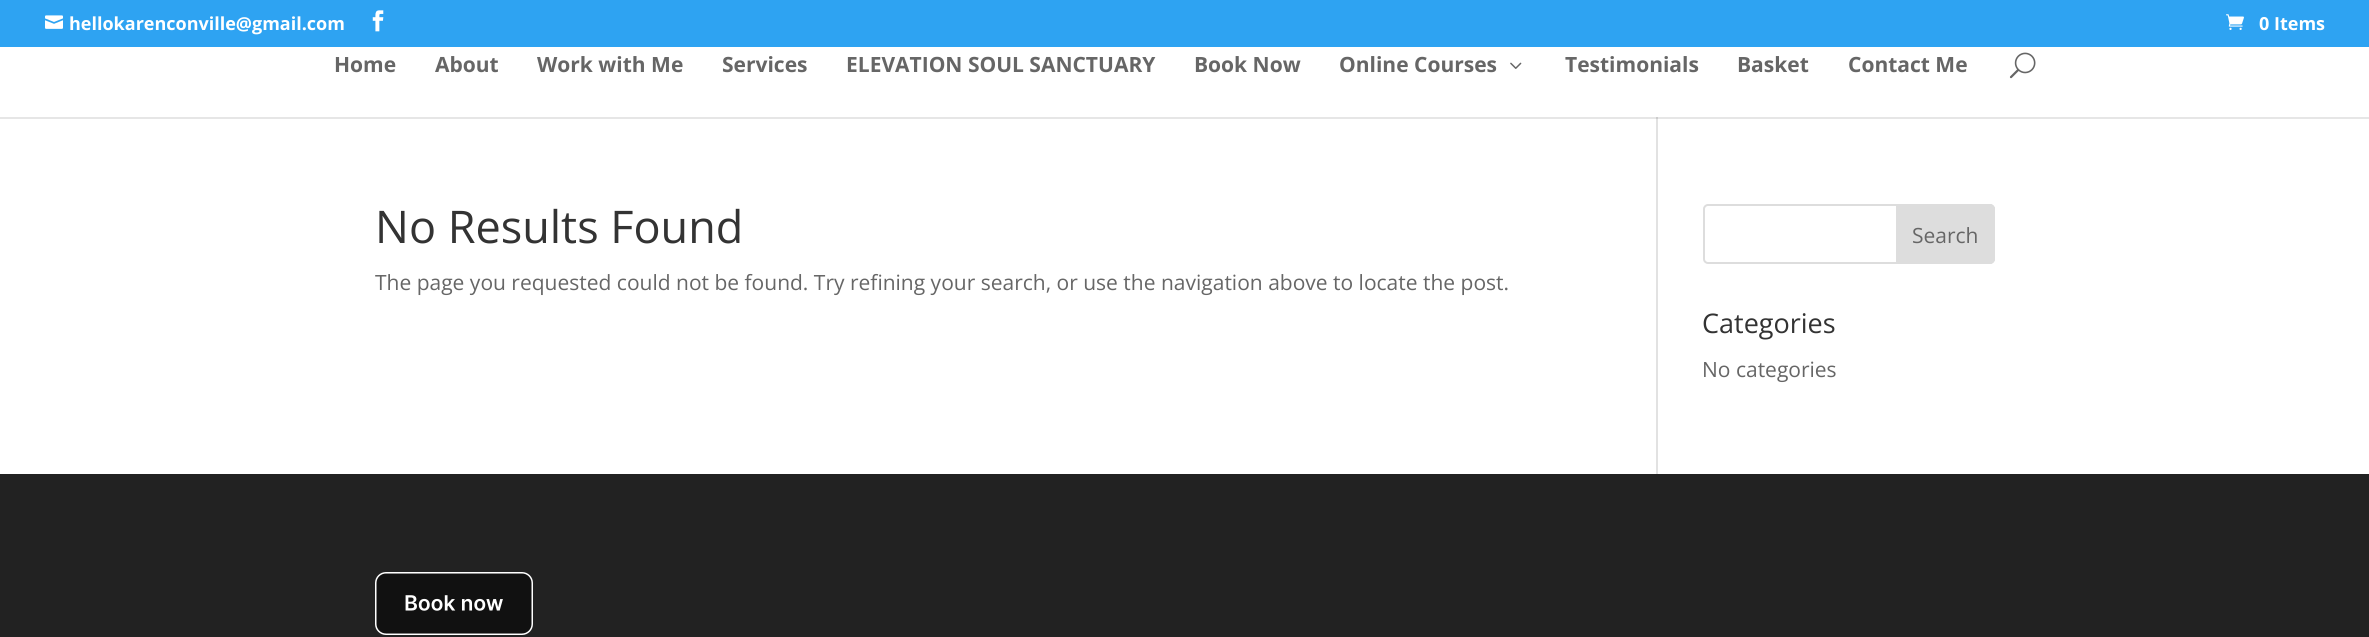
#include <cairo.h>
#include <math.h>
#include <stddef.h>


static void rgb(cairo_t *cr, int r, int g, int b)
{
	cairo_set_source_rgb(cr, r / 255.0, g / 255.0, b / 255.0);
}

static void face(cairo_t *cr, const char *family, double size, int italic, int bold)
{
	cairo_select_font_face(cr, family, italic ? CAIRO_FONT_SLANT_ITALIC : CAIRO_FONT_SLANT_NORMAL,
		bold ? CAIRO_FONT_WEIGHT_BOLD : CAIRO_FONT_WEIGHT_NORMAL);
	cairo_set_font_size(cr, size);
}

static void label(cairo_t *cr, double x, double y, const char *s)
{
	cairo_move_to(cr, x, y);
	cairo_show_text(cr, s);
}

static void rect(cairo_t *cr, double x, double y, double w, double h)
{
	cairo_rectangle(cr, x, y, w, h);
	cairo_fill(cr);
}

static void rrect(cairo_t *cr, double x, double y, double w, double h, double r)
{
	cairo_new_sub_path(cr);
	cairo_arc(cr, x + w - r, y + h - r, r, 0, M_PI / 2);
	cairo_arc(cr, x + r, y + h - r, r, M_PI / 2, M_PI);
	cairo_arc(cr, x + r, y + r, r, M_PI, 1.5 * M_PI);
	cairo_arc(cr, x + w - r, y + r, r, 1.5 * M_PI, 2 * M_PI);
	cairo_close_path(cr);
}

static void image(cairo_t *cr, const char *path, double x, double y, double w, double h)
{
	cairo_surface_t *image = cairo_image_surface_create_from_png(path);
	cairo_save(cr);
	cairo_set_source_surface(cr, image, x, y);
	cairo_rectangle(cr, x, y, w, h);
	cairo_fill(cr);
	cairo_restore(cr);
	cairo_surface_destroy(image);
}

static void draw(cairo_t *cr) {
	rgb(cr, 255, 255, 255);
	cairo_paint(cr);
	rgb(cr, 46, 163, 242);
	rect(cr, 0, 0, 2369, 47);
	image(cr, "image0.png", 45, 15, 18, 14);
	face(cr, "Open Sans", 18, 0, 1);
	rgb(cr, 255, 255, 255);
	label(cr, 69, 30, "hellokarenconville@gmail.com");
	image(cr, "image1.png", 372, 10, 12, 22);
	image(cr, "image2.png", 2226, 14, 18, 16);
	label(cr, 2259, 30, "0 Items");
	face(cr, "Open Sans", 21, 0, 1);
	rgb(cr, 102, 102, 102);
	label(cr, 334, 72, "Home");
	label(cr, 435, 72, "About");
	label(cr, 537, 72, "Work with Me");
	label(cr, 722, 72, "Services");
	label(cr, 846, 72, "ELEVATION SOUL SANCTUARY");
	label(cr, 1194, 72, "Book Now");
	label(cr, 1339, 72, "Online Courses");
	image(cr, "image3.png", 1510, 62, 12, 7);
	label(cr, 1565, 72, "Testimonials");
	label(cr, 1737, 72, "Basket");
	label(cr, 1848, 72, "Contact Me");
	image(cr, "image4.png", 2009, 52, 27, 27);
	rgb(cr, 230, 230, 230);
	rect(cr, 0, 117, 2369, 2);
	rgb(cr, 226, 226, 226);
	rect(cr, 1656, 117, 2, 357);
	rgb(cr, 203, 203, 203);
	rect(cr, 1656, 117, 2, 2);
	face(cr, "Open Sans", 45, 0, 0);
	rgb(cr, 51, 51, 51);
	label(cr, 375, 243, "No Results Found");
	face(cr, "Open Sans", 21, 0, 0);
	rgb(cr, 102, 102, 102);
	label(cr, 375, 290, "The page you requested could not be found. Try refining your search, or use the navigation above to locate the post.");
	rrect(cr, 1704, 205, 290, 58, 4);
	rgb(cr, 221, 221, 221);
	cairo_stroke(cr);
	cairo_new_path(cr);
	cairo_move_to(cr, 1897, 205);
	cairo_line_to(cr, 1990, 205);
	cairo_curve_to(cr, 1992, 205, 1994, 207, 1994, 209);
	cairo_line_to(cr, 1994, 259);
	cairo_curve_to(cr, 1994, 261, 1992, 263, 1990, 263);
	cairo_line_to(cr, 1897, 263);
	cairo_close_path(cr);
	cairo_fill_preserve(cr);
	cairo_stroke(cr);
	rgb(cr, 102, 102, 102);
	label(cr, 1912, 243, "Search");
	face(cr, "Open Sans", 27, 0, 0);
	rgb(cr, 51, 51, 51);
	label(cr, 1702, 333, "Categories");
	face(cr, "Open Sans", 21, 0, 0);
	rgb(cr, 102, 102, 102);
	label(cr, 1702, 377, "No categories");
	rgb(cr, 34, 34, 34);
	rect(cr, 0, 474, 2369, 163);
	image(cr, "image5.png", 375, 572, 158, 63);
}

int main(void) {
	cairo_surface_t *surface = cairo_image_surface_create(CAIRO_FORMAT_RGB24, 2369, 637);
	cairo_t *cr = cairo_create(surface);
	cairo_font_options_t *options = cairo_font_options_create();
	cairo_font_options_set_hint_metrics(options, CAIRO_HINT_METRICS_OFF);
	cairo_font_options_set_hint_style(options, CAIRO_HINT_STYLE_NONE);
	cairo_set_font_options(cr, options);
	cairo_set_miter_limit(cr, 4);
	draw(cr);
	cairo_surface_write_to_png(surface, "render.png");
	cairo_font_options_destroy(options);
	cairo_destroy(cr);
	cairo_surface_destroy(surface);
	return 0;
}
